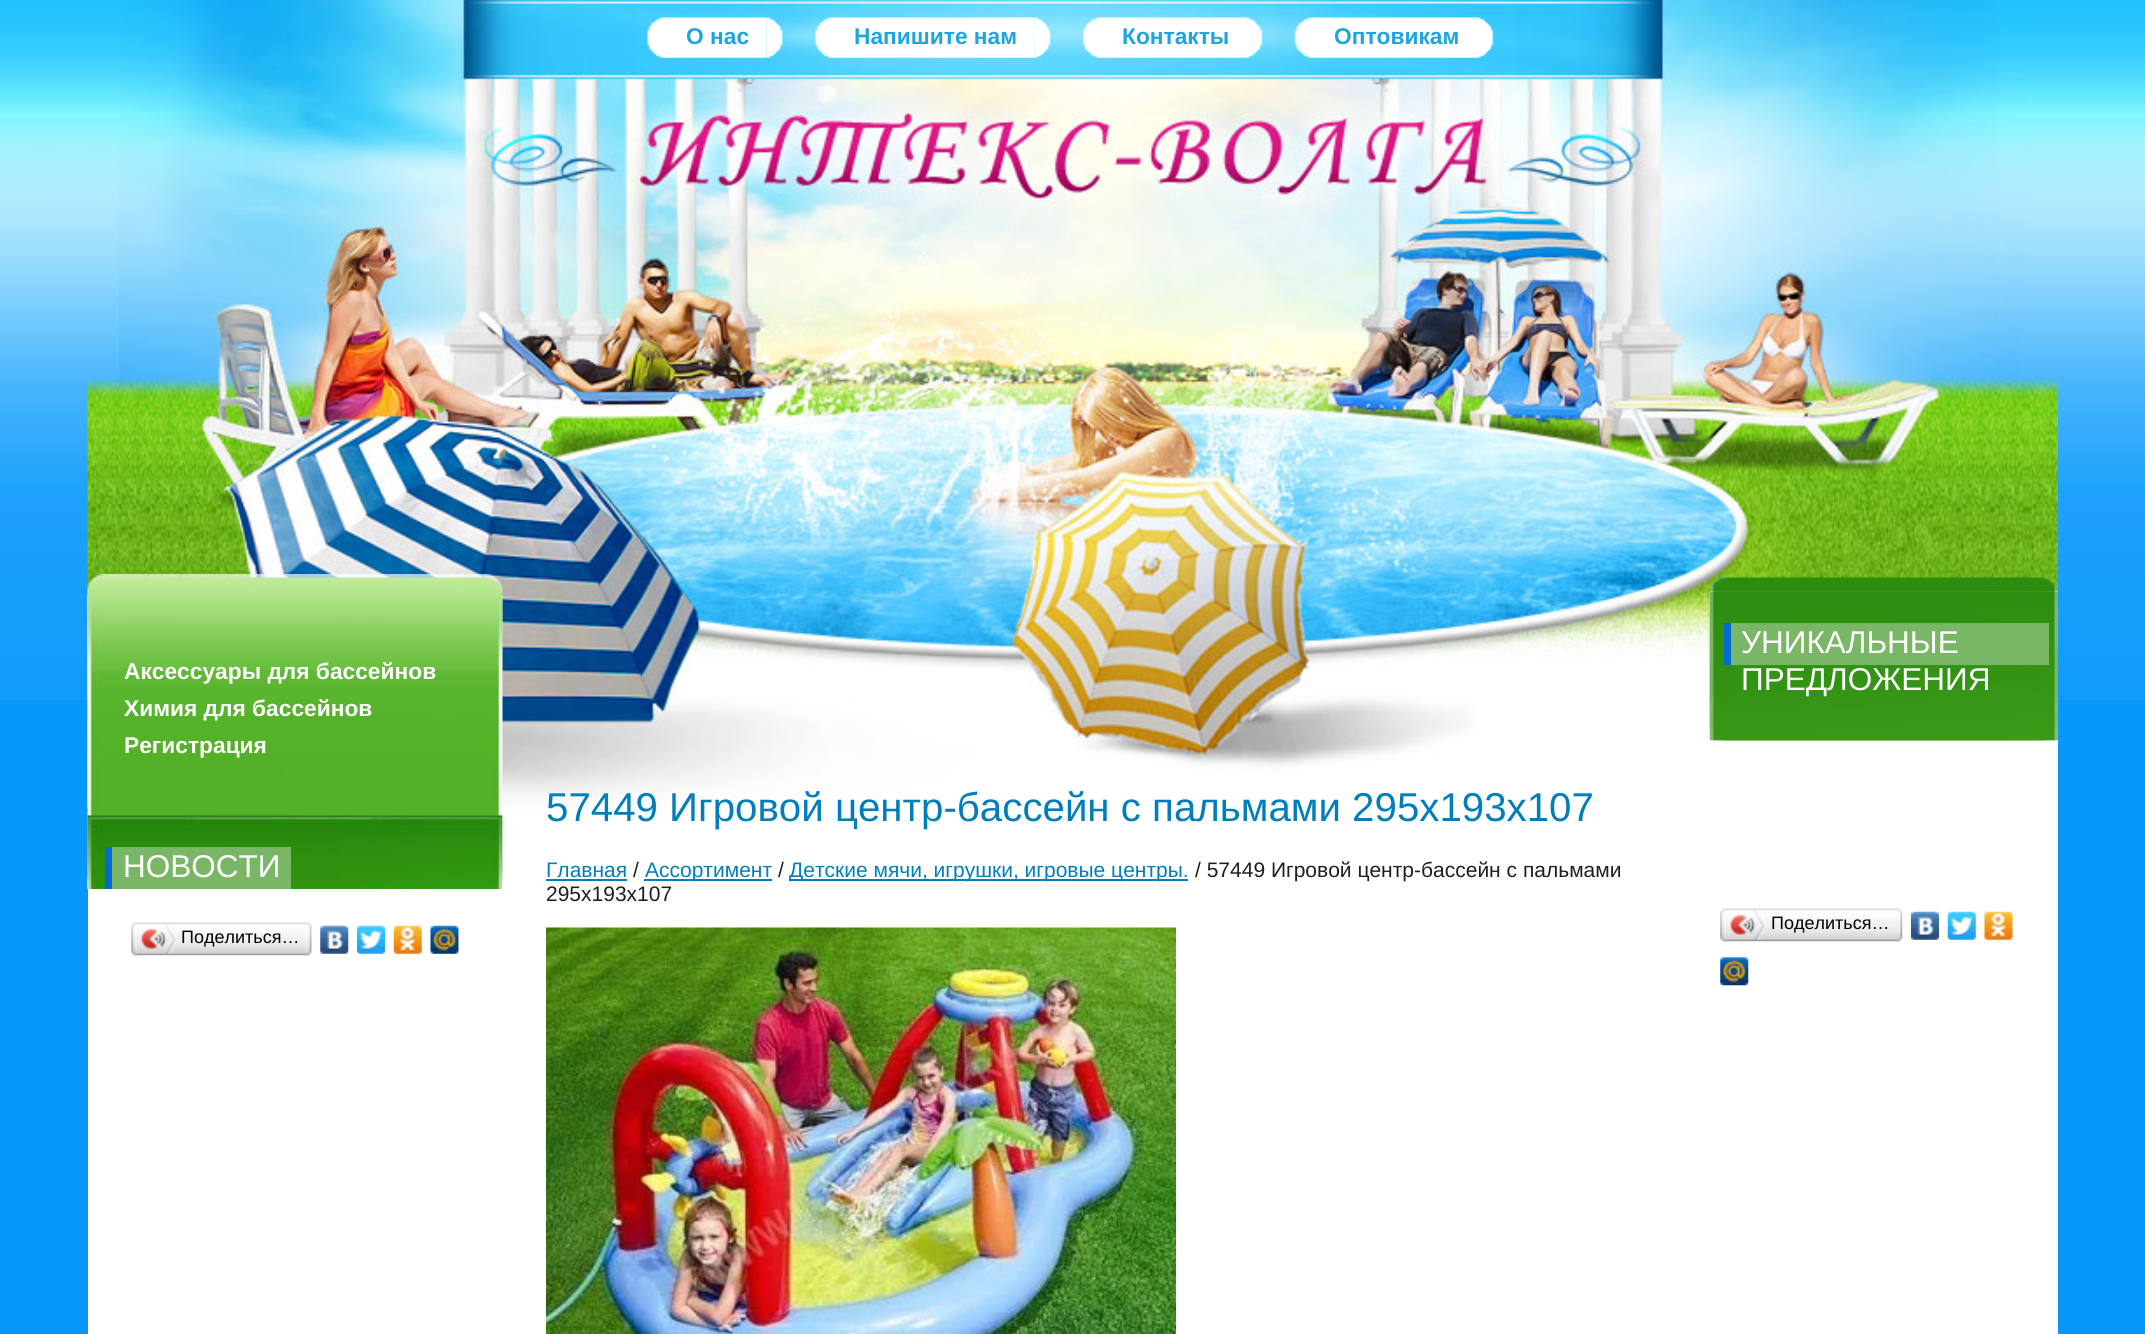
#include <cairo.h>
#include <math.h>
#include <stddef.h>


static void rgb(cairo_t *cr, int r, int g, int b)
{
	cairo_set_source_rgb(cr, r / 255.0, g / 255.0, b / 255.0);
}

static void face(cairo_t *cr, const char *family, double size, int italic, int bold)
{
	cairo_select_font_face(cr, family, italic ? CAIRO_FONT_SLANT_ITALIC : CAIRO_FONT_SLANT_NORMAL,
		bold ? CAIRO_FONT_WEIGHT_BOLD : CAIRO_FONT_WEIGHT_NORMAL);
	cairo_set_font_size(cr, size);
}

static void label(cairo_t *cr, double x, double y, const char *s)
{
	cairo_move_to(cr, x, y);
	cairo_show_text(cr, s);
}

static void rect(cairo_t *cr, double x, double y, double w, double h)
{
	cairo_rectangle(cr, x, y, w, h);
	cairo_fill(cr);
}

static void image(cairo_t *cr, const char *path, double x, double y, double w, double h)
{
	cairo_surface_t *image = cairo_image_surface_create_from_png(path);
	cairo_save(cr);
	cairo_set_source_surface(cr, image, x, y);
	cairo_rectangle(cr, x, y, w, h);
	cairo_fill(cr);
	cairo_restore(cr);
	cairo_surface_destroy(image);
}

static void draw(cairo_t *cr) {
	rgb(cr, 255, 255, 255);
	cairo_paint(cr);
	rgb(cr, 8, 152, 250);
	rect(cr, 0, 700, 88, 634);
	rect(cr, 2058, 700, 87, 634);
	image(cr, "image0.png", 0, 0, 2145, 700);
	image(cr, "image1.png", 0, 378, 88, 322);
	image(cr, "image2.png", 2058, 378, 87, 322);
	image(cr, "image3.png", 119, 0, 1908, 839);
	image(cr, "image4.png", 766, 17, 17, 41);
	image(cr, "image5.png", 647, 17, 120, 41);
	face(cr, "Liberation Sans", 22.75, 0, 1);
	rgb(cr, 30, 165, 223);
	label(cr, 686, 44, "О нас");
	image(cr, "image6.png", 1034, 17, 17, 41);
	image(cr, "image7.png", 815, 17, 220, 41);
	label(cr, 854, 44, "Напишите нам");
	image(cr, "image8.png", 1246, 17, 17, 41);
	image(cr, "image9.png", 1082, 17, 164, 41);
	label(cr, 1122, 44, "Контакты");
	image(cr, "image10.png", 1477, 17, 17, 41);
	image(cr, "image11.png", 1294, 17, 183, 41);
	label(cr, 1334, 44, "Оптовикам");
	image(cr, "image12.png", 87, 574, 416, 21);
	image(cr, "image13.png", 87, 595, 416, 221);
	image(cr, "image14.png", 87, 595, 416, 126);
	image(cr, "image15.png", 87, 595, 416, 212);
	rgb(cr, 255, 255, 255);
	label(cr, 124, 679, "Аксессуары для бассейнов");
	label(cr, 124, 716, "Химия для бассейнов");
	label(cr, 124, 753, "Регистрация");
	image(cr, "image16.png", 87, 815, 413, 74);
	image(cr, "image17.png", 87, 815, 416, 74);
	image(cr, "image18.png", 87, 815, 416, 74);
	rgb(cr, 121, 183, 102);
	rect(cr, 112, 847, 179, 42);
	rgb(cr, 0, 108, 209);
	rect(cr, 105, 847, 7, 42);
	face(cr, "Liberation Sans", 31.5, 0, 0);
	rgb(cr, 255, 255, 255);
	label(cr, 123, 877, "НОВОСТИ");
	image(cr, "image19.png", 136, 922, 171, 34);
	image(cr, "image20.png", 131, 922, 6, 34);
	image(cr, "image21.png", 141, 924, 36, 30);
	face(cr, "Liberation Sans", 18, 0, 0);
	rgb(cr, 0, 0, 0);
	label(cr, 181, 943, "Поделиться…");
	image(cr, "image22.png", 306, 922, 6, 34);
	image(cr, "image23.png", 320, 925, 29, 29);
	image(cr, "image24.png", 357, 925, 28, 29);
	image(cr, "image25.png", 393, 925, 29, 29);
	image(cr, "image26.png", 430, 925, 29, 29);
	face(cr, "Liberation Sans", 40.25, 0, 0);
	rgb(cr, 0, 126, 185);
	label(cr, 546, 821, "57449 Игровой центр-бассейн с пальмами 295х193х107");
	face(cr, "Liberation Sans", 21, 0, 0);
	rgb(cr, 0, 126, 192);
	label(cr, 546, 877, "Главная");
	rect(cr, 546, 879, 81, 2);
	rgb(cr, 31, 31, 31);
	label(cr, 633, 877, "/");
	rgb(cr, 0, 126, 192);
	rect(cr, 644, 879, 128, 2);
	label(cr, 645, 877, "Ассортимент");
	rgb(cr, 31, 31, 31);
	label(cr, 778, 877, "/");
	rgb(cr, 0, 126, 192);
	rect(cr, 789, 879, 399, 2);
	label(cr, 789, 877, "Детские мячи, игрушки, игровые центры.");
	rgb(cr, 31, 31, 31);
	label(cr, 1195, 877, "/ 57449 Игровой центр-бассейн с пальмами");
	label(cr, 546, 901, "295х193х107");
	image(cr, "image27.png", 546, 927, 630, 407);
	image(cr, "image28.png", 1709, 577, 349, 15);
	image(cr, "image29.png", 1709, 591, 349, 150);
	image(cr, "image30.png", 1709, 591, 349, 150);
	image(cr, "image31.png", 1709, 591, 349, 150);
	rgb(cr, 121, 183, 102);
	rect(cr, 1731, 623, 318, 42);
	rgb(cr, 0, 108, 209);
	rect(cr, 1724, 623, 7, 42);
	face(cr, "Liberation Sans", 31.5, 0, 0);
	rgb(cr, 255, 255, 255);
	label(cr, 1741, 653, "УНИКАЛЬНЫЕ");
	label(cr, 1741, 690, "ПРЕДЛОЖЕНИЯ");
	image(cr, "image32.png", 1725, 908, 172, 34);
	image(cr, "image20.png", 1720, 908, 6, 34);
	image(cr, "image33.png", 1730, 910, 36, 30);
	face(cr, "Liberation Sans", 18, 0, 0);
	rgb(cr, 0, 0, 0);
	label(cr, 1771, 929, "Поделиться…");
	image(cr, "image34.png", 1897, 908, 6, 34);
	image(cr, "image35.png", 1911, 911, 28, 29);
	image(cr, "image36.png", 1947, 911, 29, 29);
	image(cr, "image37.png", 1984, 911, 29, 29);
	image(cr, "image38.png", 1720, 957, 29, 29);
}

int main(void) {
	cairo_surface_t *surface = cairo_image_surface_create(CAIRO_FORMAT_RGB24, 2145, 1334);
	cairo_t *cr = cairo_create(surface);
	cairo_font_options_t *options = cairo_font_options_create();
	cairo_font_options_set_hint_metrics(options, CAIRO_HINT_METRICS_OFF);
	cairo_font_options_set_hint_style(options, CAIRO_HINT_STYLE_NONE);
	cairo_set_font_options(cr, options);
	cairo_set_miter_limit(cr, 4);
	draw(cr);
	cairo_surface_write_to_png(surface, "render.png");
	cairo_font_options_destroy(options);
	cairo_destroy(cr);
	cairo_surface_destroy(surface);
	return 0;
}
